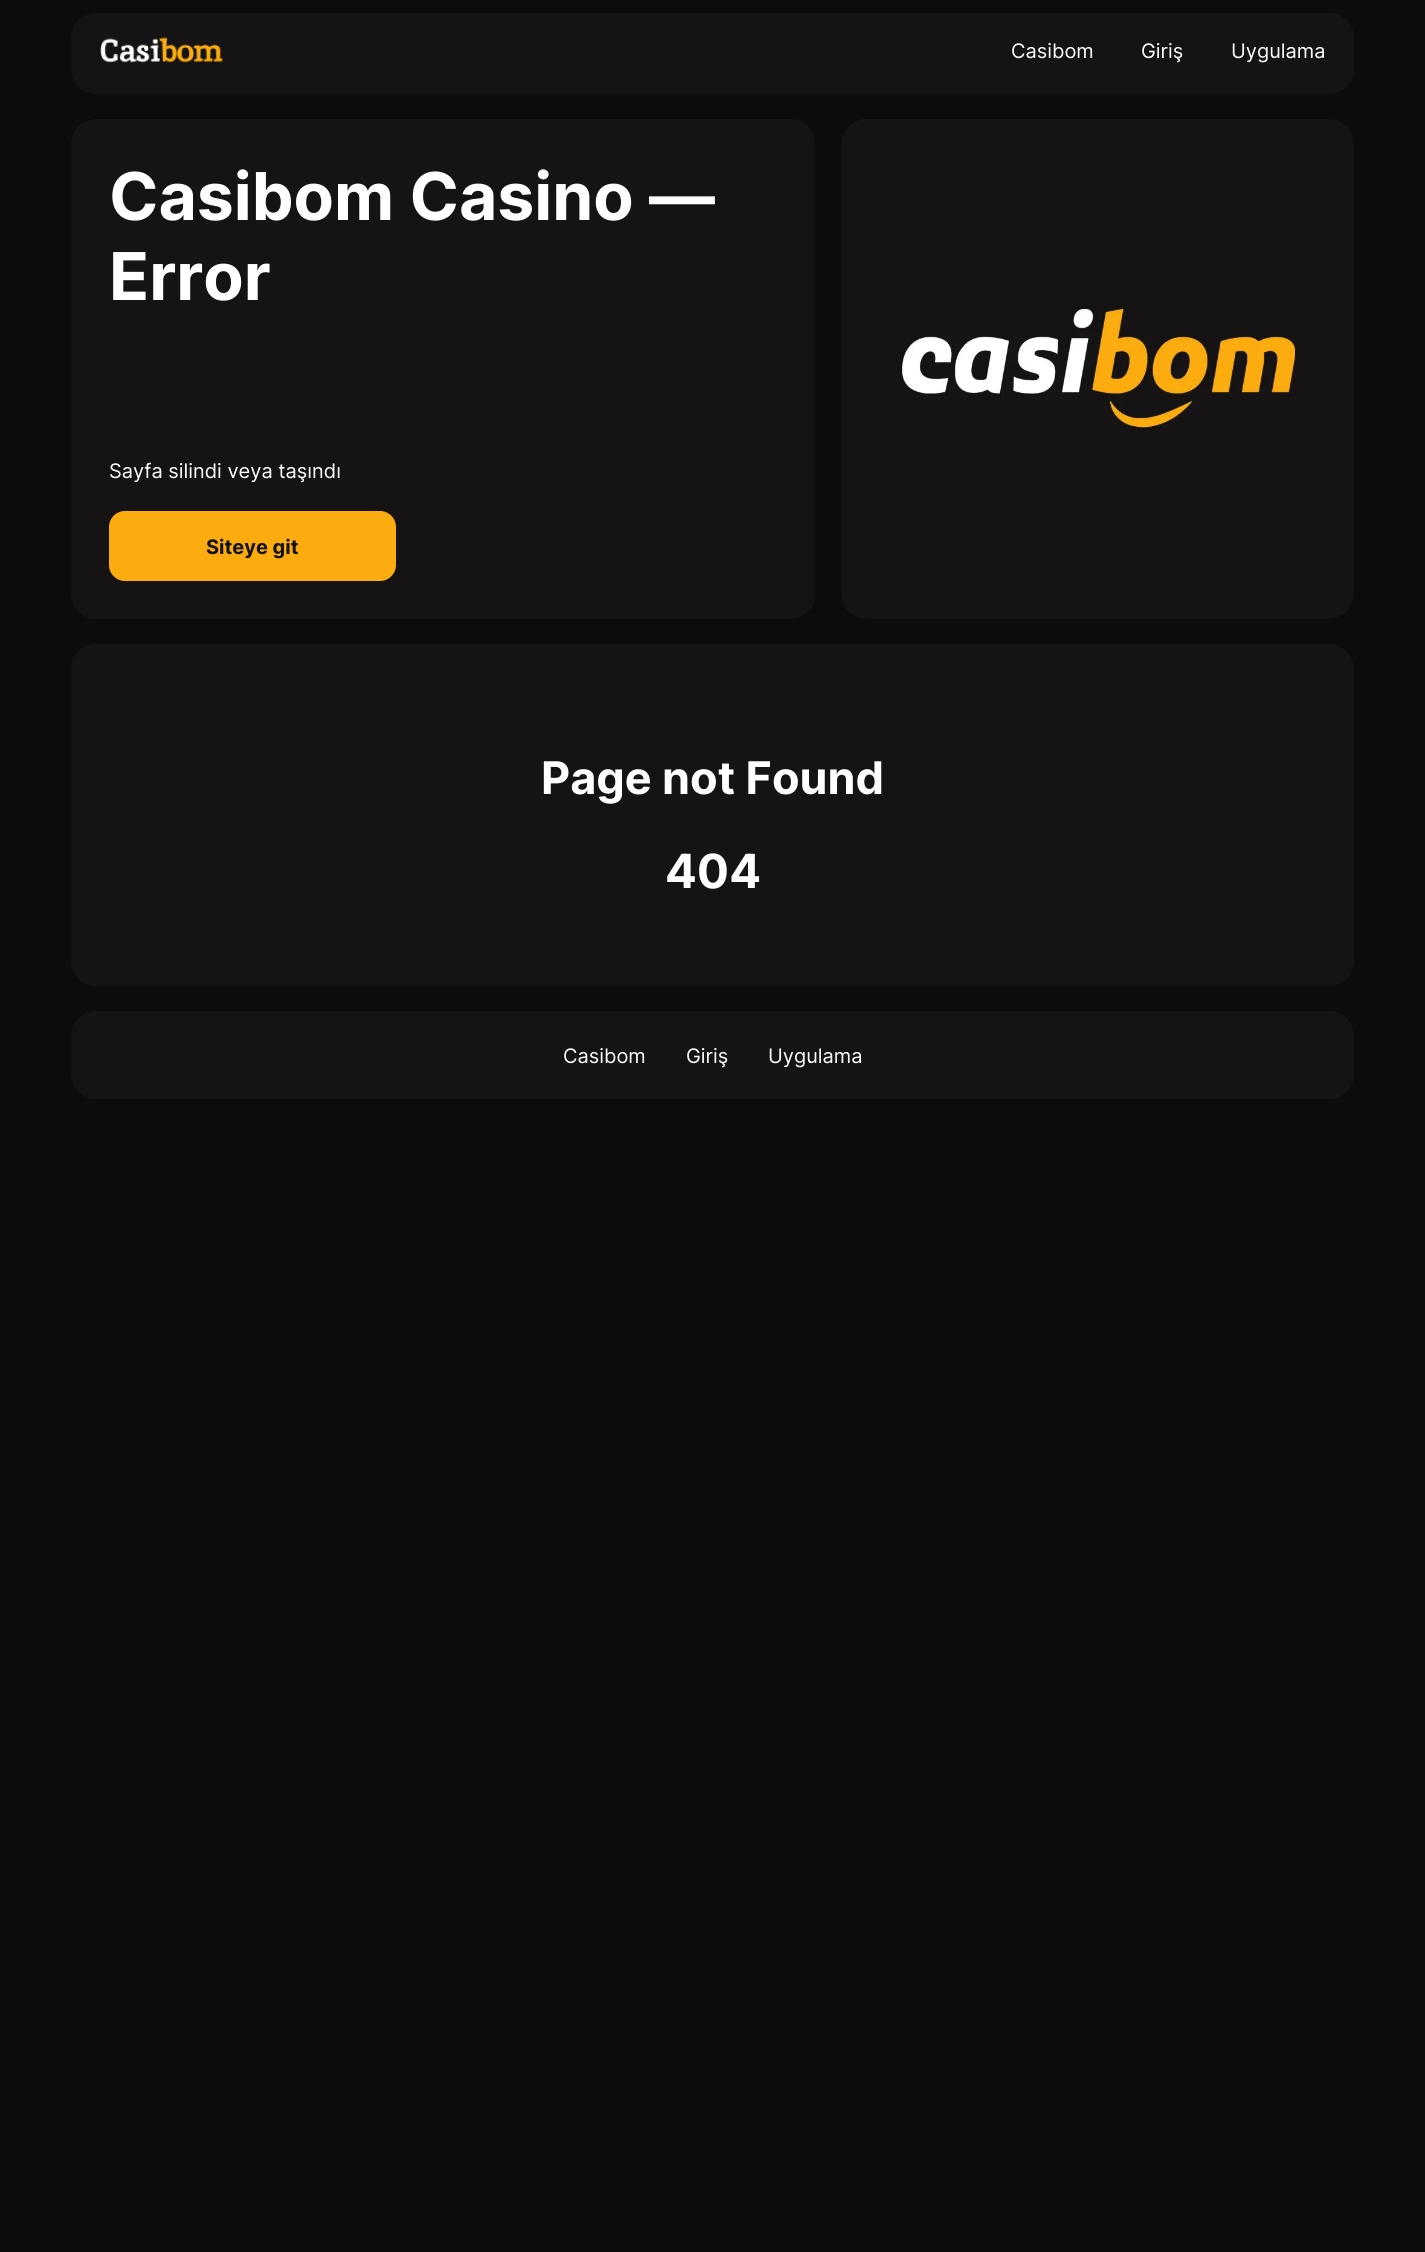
#include <cairo.h>
#include <math.h>
#include <stddef.h>


static void rgb(cairo_t *cr, int r, int g, int b)
{
	cairo_set_source_rgb(cr, r / 255.0, g / 255.0, b / 255.0);
}

static void face(cairo_t *cr, const char *family, double size, int italic, int bold)
{
	cairo_select_font_face(cr, family, italic ? CAIRO_FONT_SLANT_ITALIC : CAIRO_FONT_SLANT_NORMAL,
		bold ? CAIRO_FONT_WEIGHT_BOLD : CAIRO_FONT_WEIGHT_NORMAL);
	cairo_set_font_size(cr, size);
}

static void label(cairo_t *cr, double x, double y, const char *s)
{
	cairo_move_to(cr, x, y);
	cairo_show_text(cr, s);
}

static void rrect(cairo_t *cr, double x, double y, double w, double h, double r)
{
	cairo_new_sub_path(cr);
	cairo_arc(cr, x + w - r, y + h - r, r, 0, M_PI / 2);
	cairo_arc(cr, x + r, y + h - r, r, M_PI / 2, M_PI);
	cairo_arc(cr, x + r, y + r, r, M_PI, 1.5 * M_PI);
	cairo_arc(cr, x + w - r, y + r, r, 1.5 * M_PI, 2 * M_PI);
	cairo_close_path(cr);
}

static void image(cairo_t *cr, const char *path, double x, double y, double w, double h)
{
	cairo_surface_t *image = cairo_image_surface_create_from_png(path);
	cairo_save(cr);
	cairo_set_source_surface(cr, image, x, y);
	cairo_rectangle(cr, x, y, w, h);
	cairo_fill(cr);
	cairo_restore(cr);
	cairo_surface_destroy(image);
}

static void draw(cairo_t *cr) {
	rgb(cr, 12, 12, 12);
	cairo_paint(cr);
	rgb(cr, 21, 19, 20);
	rrect(cr, 71, 13, 1283, 81, 25);
	cairo_fill(cr);
	image(cr, "image0.png", 100, 37, 123, 26);
	face(cr, "Inter", 20, 0, 0);
	rgb(cr, 255, 255, 255);
	label(cr, 1011, 58, "Casibom");
	label(cr, 1141, 58, "Giriş");
	label(cr, 1231, 58, "Uygulama");
	rgb(cr, 21, 19, 20);
	rrect(cr, 71, 119, 744, 500, 25);
	cairo_fill(cr);
	face(cr, "Inter", 65.9, 0, 1);
	rgb(cr, 255, 255, 255);
	label(cr, 109, 220, "Casibom Casino —");
	label(cr, 109, 300, "Error");
	face(cr, "Inter", 20, 0, 0);
	label(cr, 109, 478, "Sayfa silindi veya taşındı");
	rgb(cr, 252, 172, 15);
	rrect(cr, 109, 511, 287, 70, 16);
	cairo_fill(cr);
	face(cr, "Inter", 20, 0, 1);
	rgb(cr, 18, 18, 18);
	label(cr, 206, 554, "Siteye git");
	image(cr, "image1.png", 841, 119, 513, 500);
	rgb(cr, 21, 19, 20);
	rrect(cr, 71, 644, 1283, 342, 25);
	cairo_fill(cr);
	face(cr, "Inter", 45, 0, 1);
	rgb(cr, 255, 255, 255);
	label(cr, 541, 794, "Page not Found");
	face(cr, "Inter", 47, 0, 1);
	label(cr, 665, 888, "404");
	rgb(cr, 21, 19, 20);
	rrect(cr, 71, 1011, 1283, 88, 25);
	cairo_fill(cr);
	face(cr, "Inter", 20, 0, 0);
	rgb(cr, 255, 255, 255);
	label(cr, 563, 1063, "Casibom");
	label(cr, 686, 1063, "Giriş");
	label(cr, 768, 1063, "Uygulama");
}

int main(void) {
	cairo_surface_t *surface = cairo_image_surface_create(CAIRO_FORMAT_RGB24, 1425, 2252);
	cairo_t *cr = cairo_create(surface);
	cairo_font_options_t *options = cairo_font_options_create();
	cairo_font_options_set_hint_metrics(options, CAIRO_HINT_METRICS_OFF);
	cairo_font_options_set_hint_style(options, CAIRO_HINT_STYLE_NONE);
	cairo_set_font_options(cr, options);
	cairo_set_miter_limit(cr, 4);
	draw(cr);
	cairo_surface_write_to_png(surface, "render.png");
	cairo_font_options_destroy(options);
	cairo_destroy(cr);
	cairo_surface_destroy(surface);
	return 0;
}
